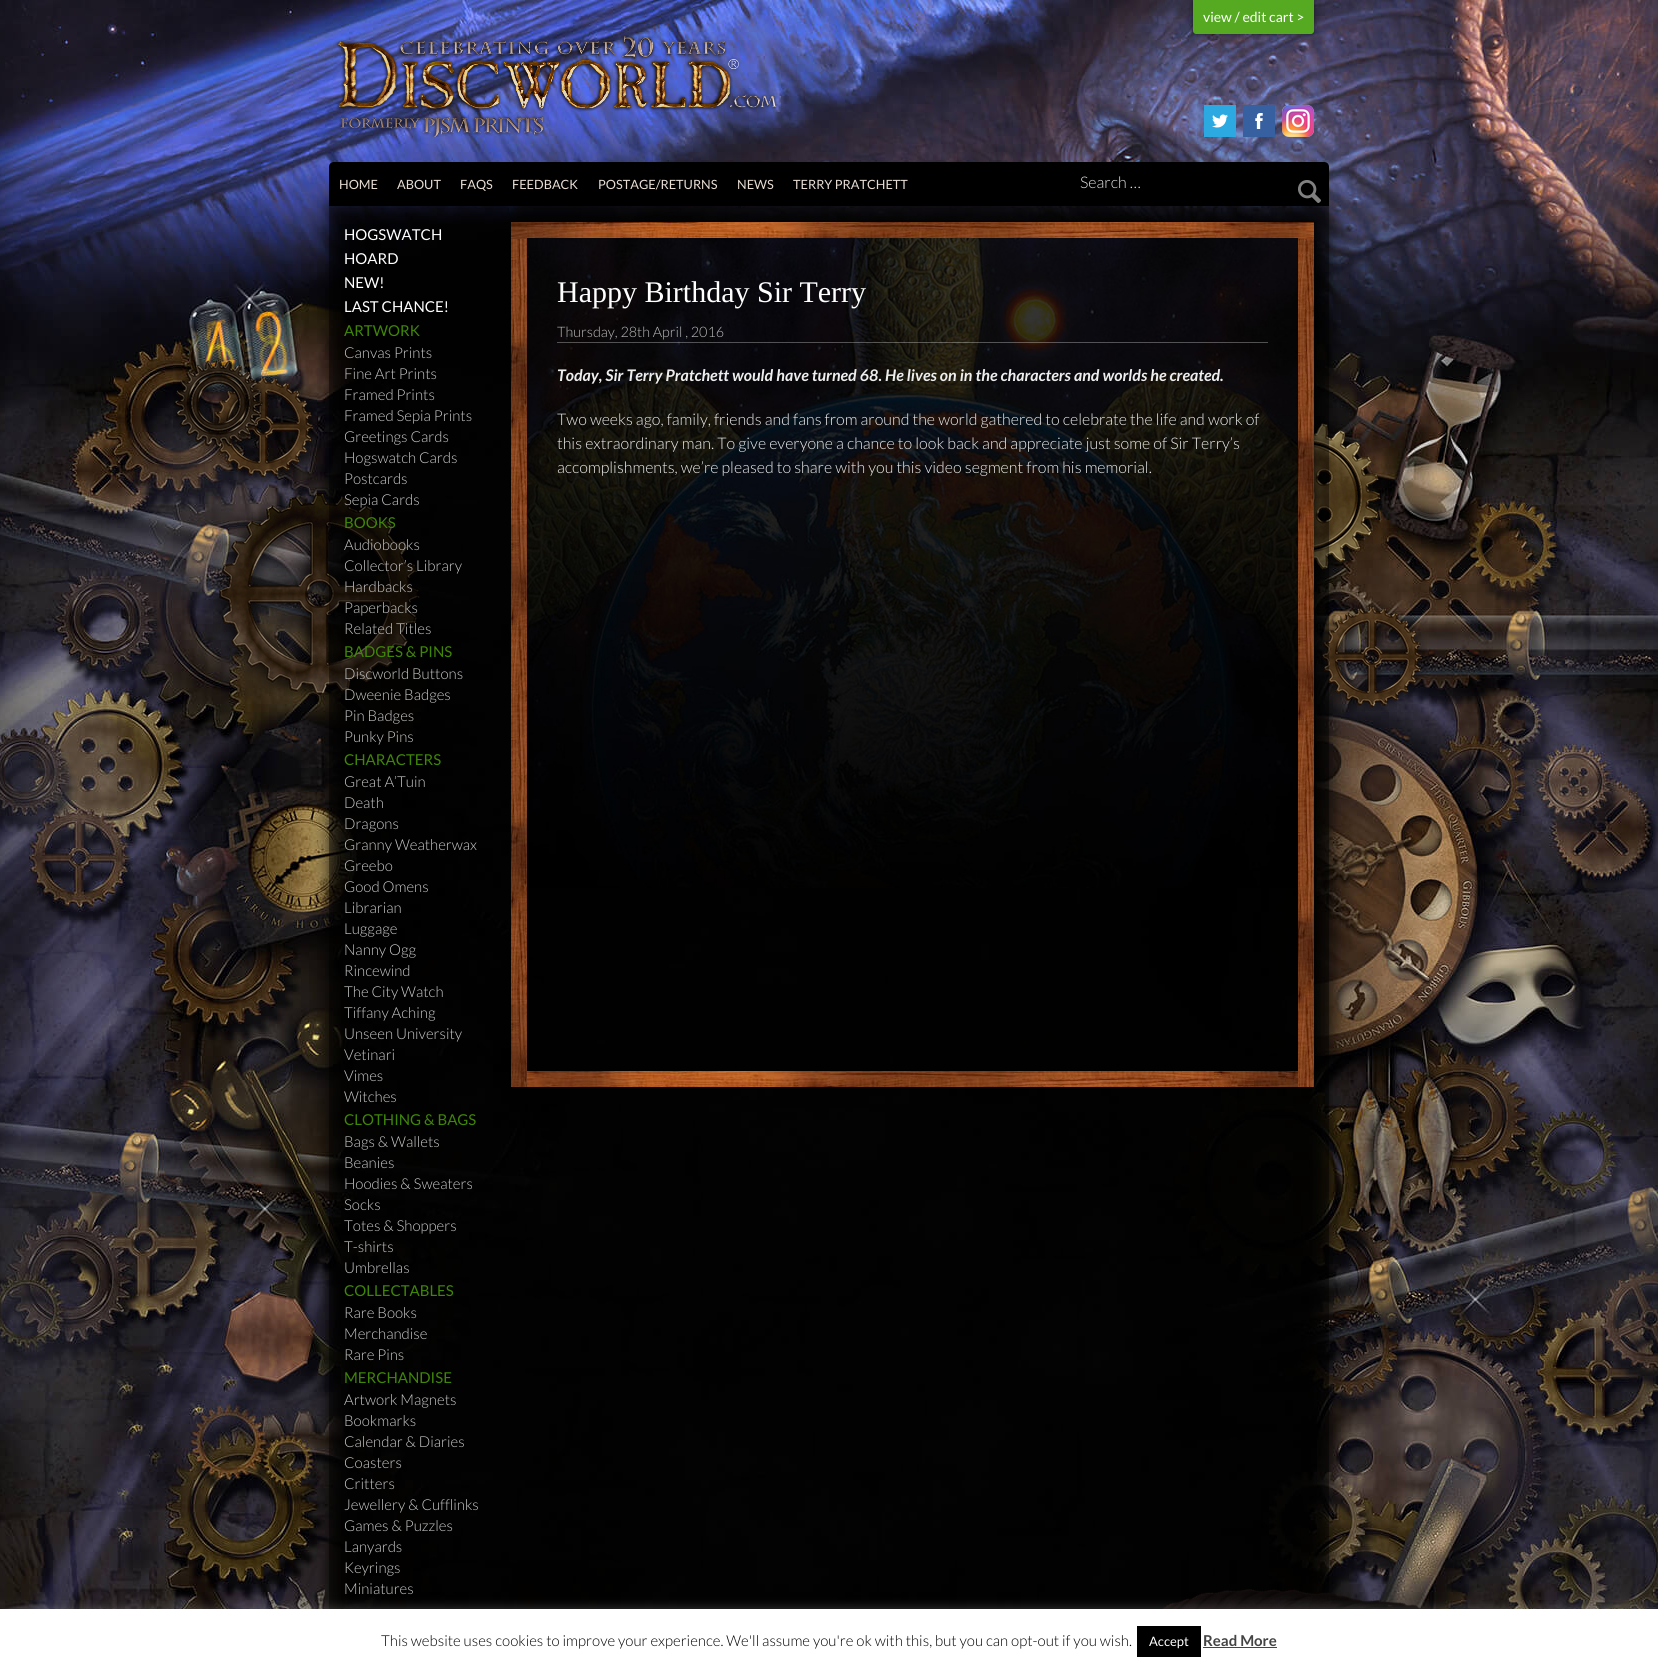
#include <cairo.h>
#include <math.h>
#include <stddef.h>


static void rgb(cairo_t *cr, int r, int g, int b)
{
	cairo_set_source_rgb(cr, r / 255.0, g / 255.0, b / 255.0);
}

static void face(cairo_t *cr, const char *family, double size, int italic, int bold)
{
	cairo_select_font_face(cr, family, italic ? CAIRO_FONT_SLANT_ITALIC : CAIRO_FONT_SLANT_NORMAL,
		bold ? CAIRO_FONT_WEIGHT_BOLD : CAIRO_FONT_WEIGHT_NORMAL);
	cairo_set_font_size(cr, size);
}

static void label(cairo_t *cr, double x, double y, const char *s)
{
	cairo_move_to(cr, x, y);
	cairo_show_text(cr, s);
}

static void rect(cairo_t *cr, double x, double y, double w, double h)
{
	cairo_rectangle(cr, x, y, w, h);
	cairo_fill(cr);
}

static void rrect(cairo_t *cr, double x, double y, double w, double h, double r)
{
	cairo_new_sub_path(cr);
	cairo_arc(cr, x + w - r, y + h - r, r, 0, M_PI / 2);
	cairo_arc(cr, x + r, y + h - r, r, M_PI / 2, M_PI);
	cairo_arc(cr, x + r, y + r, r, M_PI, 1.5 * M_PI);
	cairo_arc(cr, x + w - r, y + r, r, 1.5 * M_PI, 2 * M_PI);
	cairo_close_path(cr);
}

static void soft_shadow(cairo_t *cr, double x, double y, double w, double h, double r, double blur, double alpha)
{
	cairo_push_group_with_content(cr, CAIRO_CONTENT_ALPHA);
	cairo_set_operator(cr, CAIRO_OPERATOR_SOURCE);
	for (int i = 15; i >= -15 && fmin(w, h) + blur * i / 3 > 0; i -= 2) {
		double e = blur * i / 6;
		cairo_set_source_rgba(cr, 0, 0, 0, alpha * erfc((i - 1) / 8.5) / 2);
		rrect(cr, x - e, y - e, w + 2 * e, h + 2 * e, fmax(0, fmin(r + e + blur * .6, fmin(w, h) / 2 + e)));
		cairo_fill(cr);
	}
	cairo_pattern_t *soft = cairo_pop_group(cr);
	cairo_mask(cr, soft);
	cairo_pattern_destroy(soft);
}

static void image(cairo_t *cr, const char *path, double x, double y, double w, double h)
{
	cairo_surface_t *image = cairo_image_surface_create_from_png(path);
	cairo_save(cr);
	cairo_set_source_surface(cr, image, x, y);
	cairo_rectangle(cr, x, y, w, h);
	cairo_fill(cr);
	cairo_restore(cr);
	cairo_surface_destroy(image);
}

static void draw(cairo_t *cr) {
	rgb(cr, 255, 255, 255);
	cairo_paint(cr);
	image(cr, "image0.png", 0, 0, 1658, 1609);
	rgb(cr, 0, 0, 0);
	soft_shadow(cr, 1193, 0, 121, 34, 3, 2.5, 0.5);
	rgb(cr, 85, 170, 34);
	cairo_new_path(cr);
	cairo_move_to(cr, 1193, 0);
	cairo_line_to(cr, 1314, 0);
	cairo_line_to(cr, 1314, 31);
	cairo_curve_to(cr, 1314, 32.5, 1312.5, 34, 1311, 34);
	cairo_line_to(cr, 1196, 34);
	cairo_curve_to(cr, 1194.5, 34, 1193, 32.5, 1193, 31);
	cairo_close_path(cr);
	cairo_fill(cr);
	face(cr, "Lato", 14, 0, 0);
	rgb(cr, 255, 255, 255);
	label(cr, 1203, 22, "view / edit cart >");
	image(cr, "image1.png", 1204, 105, 32, 32);
	image(cr, "image2.png", 1243, 105, 32, 32);
	image(cr, "image3.png", 1282, 105, 32, 32);
	image(cr, "image4.png", 335, 35, 443, 102);
	rgb(cr, 0, 0, 0);
	cairo_new_path(cr);
	cairo_move_to(cr, 334, 162);
	cairo_line_to(cr, 1324, 162);
	cairo_curve_to(cr, 1327, 162, 1329, 164, 1329, 167);
	cairo_line_to(cr, 1329, 206);
	cairo_line_to(cr, 329, 206);
	cairo_line_to(cr, 329, 167);
	cairo_curve_to(cr, 329, 164, 331, 162, 334, 162);
	cairo_close_path(cr);
	cairo_fill(cr);
	face(cr, "Lato", 12.75, 0, 0);
	rgb(cr, 231, 221, 212);
	label(cr, 339, 189, "HOME");
	label(cr, 397, 189, "ABOUT");
	label(cr, 460, 189, "FAQS");
	label(cr, 512, 189, "FEEDBACK");
	label(cr, 598, 189, "POSTAGE/RETURNS");
	label(cr, 737, 189, "NEWS");
	label(cr, 793, 189, "TERRY PRATCHETT");
	face(cr, "Lato Light", 16, 0, 0);
	rgb(cr, 230, 230, 230);
	label(cr, 1080, 188, "Search …");
	image(cr, "image5.png", 1298, 180, 23, 23);
	image(cr, "image10.png", 1314, 421, 74, 154);
	image(cr, "image11.png", 209, 487, 211, 215);
	image(cr, "image12.png", 1321, 601, 106, 110);
	cairo_set_source_rgba(cr, 0, 0, 0, 0.42);
	rect(cr, 329, 206, 1000, 1403);
	face(cr, "Lato", 15, 0, 0);
	rgb(cr, 255, 255, 255);
	label(cr, 344, 240, "HOGSWATCH");
	label(cr, 344, 264, "HOARD");
	label(cr, 344, 288, "NEW!");
	label(cr, 344, 312, "LAST CHANCE!");
	rgb(cr, 63, 134, 6);
	label(cr, 344, 336, "ARTWORK");
	face(cr, "Lato Light", 15, 0, 0);
	rgb(cr, 203, 203, 203);
	label(cr, 344, 358, "Canvas Prints");
	label(cr, 344, 379, "Fine Art Prints");
	label(cr, 344, 400, "Framed Prints");
	label(cr, 344, 421, "Framed Sepia Prints");
	label(cr, 344, 442, "Greetings Cards");
	label(cr, 344, 463, "Hogswatch Cards");
	label(cr, 344, 484, "Postcards");
	label(cr, 344, 505, "Sepia Cards");
	face(cr, "Lato", 15, 0, 0);
	rgb(cr, 63, 134, 6);
	label(cr, 344, 528, "BOOKS");
	face(cr, "Lato Light", 15, 0, 0);
	rgb(cr, 203, 203, 203);
	label(cr, 344, 550, "Audiobooks");
	label(cr, 344, 571, "Collector’s Library");
	label(cr, 344, 592, "Hardbacks");
	label(cr, 344, 613, "Paperbacks");
	label(cr, 344, 634, "Related Titles");
	face(cr, "Lato", 15, 0, 0);
	rgb(cr, 63, 134, 6);
	label(cr, 344, 657, "BADGES & PINS");
	face(cr, "Lato Light", 15, 0, 0);
	rgb(cr, 203, 203, 203);
	label(cr, 344, 679, "Discworld Buttons");
	label(cr, 344, 700, "Dweenie Badges");
	label(cr, 344, 721, "Pin Badges");
	label(cr, 344, 742, "Punky Pins");
	face(cr, "Lato", 15, 0, 0);
	rgb(cr, 63, 134, 6);
	label(cr, 344, 765, "CHARACTERS");
	face(cr, "Lato Light", 15, 0, 0);
	rgb(cr, 203, 203, 203);
	label(cr, 344, 787, "Great A’Tuin");
	label(cr, 344, 808, "Death");
	label(cr, 344, 829, "Dragons");
	label(cr, 344, 850, "Granny Weatherwax");
	label(cr, 344, 871, "Greebo");
	label(cr, 344, 892, "Good Omens");
	label(cr, 344, 913, "Librarian");
	label(cr, 344, 934, "Luggage");
	label(cr, 344, 955, "Nanny Ogg");
	label(cr, 344, 976, "Rincewind");
	label(cr, 344, 997, "The City Watch");
	label(cr, 344, 1018, "Tiffany Aching");
	label(cr, 344, 1039, "Unseen University");
	label(cr, 344, 1060, "Vetinari");
	label(cr, 344, 1081, "Vimes");
	label(cr, 344, 1102, "Witches");
	face(cr, "Lato", 15, 0, 0);
	rgb(cr, 63, 134, 6);
	label(cr, 344, 1125, "CLOTHING & BAGS");
	face(cr, "Lato Light", 15, 0, 0);
	rgb(cr, 203, 203, 203);
	label(cr, 344, 1147, "Bags & Wallets");
	label(cr, 344, 1168, "Beanies");
	label(cr, 344, 1189, "Hoodies & Sweaters");
	label(cr, 344, 1210, "Socks");
	label(cr, 344, 1231, "Totes & Shoppers");
	label(cr, 344, 1252, "T-shirts");
	label(cr, 344, 1273, "Umbrellas");
	face(cr, "Lato", 15, 0, 0);
	rgb(cr, 63, 134, 6);
	label(cr, 344, 1296, "COLLECTABLES");
	face(cr, "Lato Light", 15, 0, 0);
	rgb(cr, 203, 203, 203);
	label(cr, 344, 1318, "Rare Books");
	label(cr, 344, 1339, "Merchandise");
	label(cr, 344, 1360, "Rare Pins");
	face(cr, "Lato", 15, 0, 0);
	rgb(cr, 63, 134, 6);
	label(cr, 344, 1383, "MERCHANDISE");
	face(cr, "Lato Light", 15, 0, 0);
	rgb(cr, 203, 203, 203);
	label(cr, 344, 1405, "Artwork Magnets");
	label(cr, 344, 1426, "Bookmarks");
	label(cr, 344, 1447, "Calendar & Diaries");
	label(cr, 344, 1468, "Coasters");
	label(cr, 344, 1489, "Critters");
	label(cr, 344, 1510, "Jewellery & Cufflinks");
	label(cr, 344, 1531, "Games & Puzzles");
	label(cr, 344, 1552, "Lanyards");
	label(cr, 344, 1573, "Keyrings");
	label(cr, 344, 1594, "Miniatures");
	rgb(cr, 0, 0, 0);
	soft_shadow(cr, 511, 222, 803, 865, 0, 2.5, 0.5);
	image(cr, "image6.png", 511, 222, 803, 865);
	rgb(cr, 0, 0, 0);
	rect(cr, 527, 1070, 771, 1);
	image(cr, "image7.png", 527, 238, 771, 650);
	face(cr, "Liberation Serif", 30, 0, 0);
	rgb(cr, 255, 255, 255);
	label(cr, 557, 302, "Happy Birthday Sir Terry");
	cairo_set_source_rgba(cr, 1, 1, 1, 0.3);
	rect(cr, 557, 342, 711, 1);
	face(cr, "Lato Light", 14.4, 0, 0);
	rgb(cr, 187, 187, 187);
	label(cr, 557, 337, "Thursday, 28th April , 2016");
	face(cr, "Lato", 16, 1, 1);
	rgb(cr, 238, 238, 238);
	label(cr, 557, 381, "Today, Sir Terry Pratchett would have turned 68. He lives on in the characters and worlds he created.");
	face(cr, "Lato Light", 16, 0, 0);
	label(cr, 557, 425, "Two weeks ago, family, friends and fans from around the world gathered to celebrate the life and work of");
	label(cr, 557, 449, "this extraordinary man. To give everyone a chance to look back and appreciate just some of Sir Terry’s");
	label(cr, 557, 473, "accomplishments, we’re pleased to share with you this video segment from his memorial.");
	image(cr, "image9.png", 208, 370, 108, 112);
	image(cr, "image8.png", 173, 352, 94, 101);
	image(cr, "image13.png", 1162, 1589, 268, 20);
	rgb(cr, 172, 171, 171);
	soft_shadow(cr, 0, 1608, 1658, 60, 0, 5, 0.3);
	rgb(cr, 255, 255, 255);
	rect(cr, 0, 1609, 1658, 60);
	face(cr, "Lato Light", 15, 0, 0);
	rgb(cr, 0, 0, 0);
	label(cr, 381, 1646, "This website uses cookies to improve your experience. We'll assume you're ok with this, but you can opt-out if you wish.");
	rect(cr, 1137, 1626, 64, 31);
	face(cr, "Lato", 13, 0, 0);
	rgb(cr, 255, 255, 255);
	label(cr, 1149, 1646, "Accept");
	face(cr, "Lato", 15, 0, 1);
	rgb(cr, 68, 68, 68);
	label(cr, 1203, 1646, "Read More");
	rect(cr, 1203, 1647, 74, 1);
}

int main(void) {
	cairo_surface_t *surface = cairo_image_surface_create(CAIRO_FORMAT_RGB24, 1658, 1669);
	cairo_t *cr = cairo_create(surface);
	cairo_font_options_t *options = cairo_font_options_create();
	cairo_font_options_set_hint_metrics(options, CAIRO_HINT_METRICS_OFF);
	cairo_font_options_set_hint_style(options, CAIRO_HINT_STYLE_NONE);
	cairo_set_font_options(cr, options);
	cairo_set_miter_limit(cr, 4);
	draw(cr);
	cairo_surface_write_to_png(surface, "render.png");
	cairo_font_options_destroy(options);
	cairo_destroy(cr);
	cairo_surface_destroy(surface);
	return 0;
}
